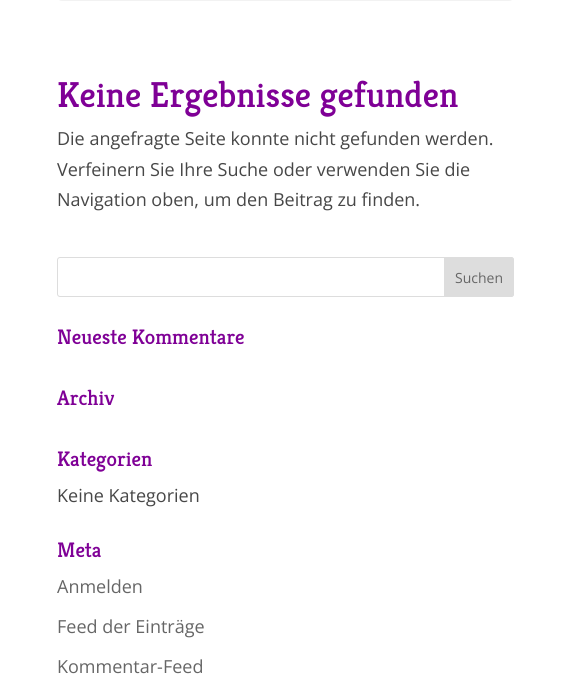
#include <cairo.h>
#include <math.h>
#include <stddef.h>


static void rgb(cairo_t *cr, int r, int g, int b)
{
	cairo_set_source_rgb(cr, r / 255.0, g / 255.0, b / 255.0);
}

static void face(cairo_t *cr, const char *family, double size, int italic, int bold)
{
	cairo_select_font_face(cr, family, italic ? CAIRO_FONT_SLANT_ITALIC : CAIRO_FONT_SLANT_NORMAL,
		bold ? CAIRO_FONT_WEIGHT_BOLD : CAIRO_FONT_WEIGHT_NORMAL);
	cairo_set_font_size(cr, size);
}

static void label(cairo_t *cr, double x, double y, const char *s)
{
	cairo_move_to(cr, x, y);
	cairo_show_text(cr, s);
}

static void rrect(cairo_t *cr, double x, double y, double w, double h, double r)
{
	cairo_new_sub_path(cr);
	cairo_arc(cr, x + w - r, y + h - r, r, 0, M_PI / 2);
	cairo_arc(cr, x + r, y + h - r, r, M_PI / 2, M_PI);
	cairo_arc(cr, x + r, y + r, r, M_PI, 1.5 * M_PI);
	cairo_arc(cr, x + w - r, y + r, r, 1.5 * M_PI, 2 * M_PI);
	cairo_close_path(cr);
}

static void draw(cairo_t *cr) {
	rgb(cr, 255, 255, 255);
	cairo_paint(cr);
	rgb(cr, 242, 242, 242);
	rrect(cr, 57, -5, 457, 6, 5);
	cairo_fill(cr);
	face(cr, "Kreon Medium", 36, 0, 0);
	rgb(cr, 127, 0, 150);
	label(cr, 57, 107, "Keine Ergebnisse gefunden");
	face(cr, "Open Sans", 18, 0, 0);
	rgb(cr, 71, 71, 71);
	label(cr, 57, 145, "Die angefragte Seite konnte nicht gefunden werden.");
	label(cr, 57, 176, "Verfeinern Sie Ihre Suche oder verwenden Sie die");
	label(cr, 57, 206, "Navigation oben, um den Beitrag zu finden.");
	rrect(cr, 57.5, 257.5, 456, 39, 2.5);
	rgb(cr, 221, 221, 221);
	cairo_set_line_width(cr, 1);
	cairo_stroke(cr);
	cairo_new_path(cr);
	cairo_move_to(cr, 444.5, 257.5);
	cairo_line_to(cr, 511, 257.5);
	cairo_curve_to(cr, 512.5, 257.5, 513.5, 258.5, 513.5, 260);
	cairo_line_to(cr, 513.5, 294);
	cairo_curve_to(cr, 513.5, 295.5, 512.5, 296.5, 511, 296.5);
	cairo_line_to(cr, 444.5, 296.5);
	cairo_close_path(cr);
	cairo_fill_preserve(cr);
	cairo_stroke(cr);
	face(cr, "Open Sans", 14, 0, 0);
	rgb(cr, 102, 102, 102);
	label(cr, 455, 283, "Suchen");
	face(cr, "Kreon Medium", 21, 0, 0);
	rgb(cr, 127, 0, 150);
	label(cr, 57, 344, "Neueste Kommentare");
	label(cr, 57, 405, "Archiv");
	label(cr, 57, 466, "Kategorien");
	face(cr, "Open Sans", 18, 0, 0);
	rgb(cr, 71, 71, 71);
	label(cr, 57, 502, "Keine Kategorien");
	face(cr, "Kreon Medium", 21, 0, 0);
	rgb(cr, 127, 0, 150);
	label(cr, 57, 557, "Meta");
	face(cr, "Open Sans", 18, 0, 0);
	rgb(cr, 102, 102, 102);
	label(cr, 57, 593, "Anmelden");
	label(cr, 57, 633, "Feed der Einträge");
	label(cr, 57, 673, "Kommentar-Feed");
}

int main(void) {
	cairo_surface_t *surface = cairo_image_surface_create(CAIRO_FORMAT_RGB24, 571, 680);
	cairo_t *cr = cairo_create(surface);
	cairo_font_options_t *options = cairo_font_options_create();
	cairo_font_options_set_hint_metrics(options, CAIRO_HINT_METRICS_OFF);
	cairo_font_options_set_hint_style(options, CAIRO_HINT_STYLE_NONE);
	cairo_set_font_options(cr, options);
	cairo_set_miter_limit(cr, 4);
	draw(cr);
	cairo_surface_write_to_png(surface, "render.png");
	cairo_font_options_destroy(options);
	cairo_destroy(cr);
	cairo_surface_destroy(surface);
	return 0;
}
